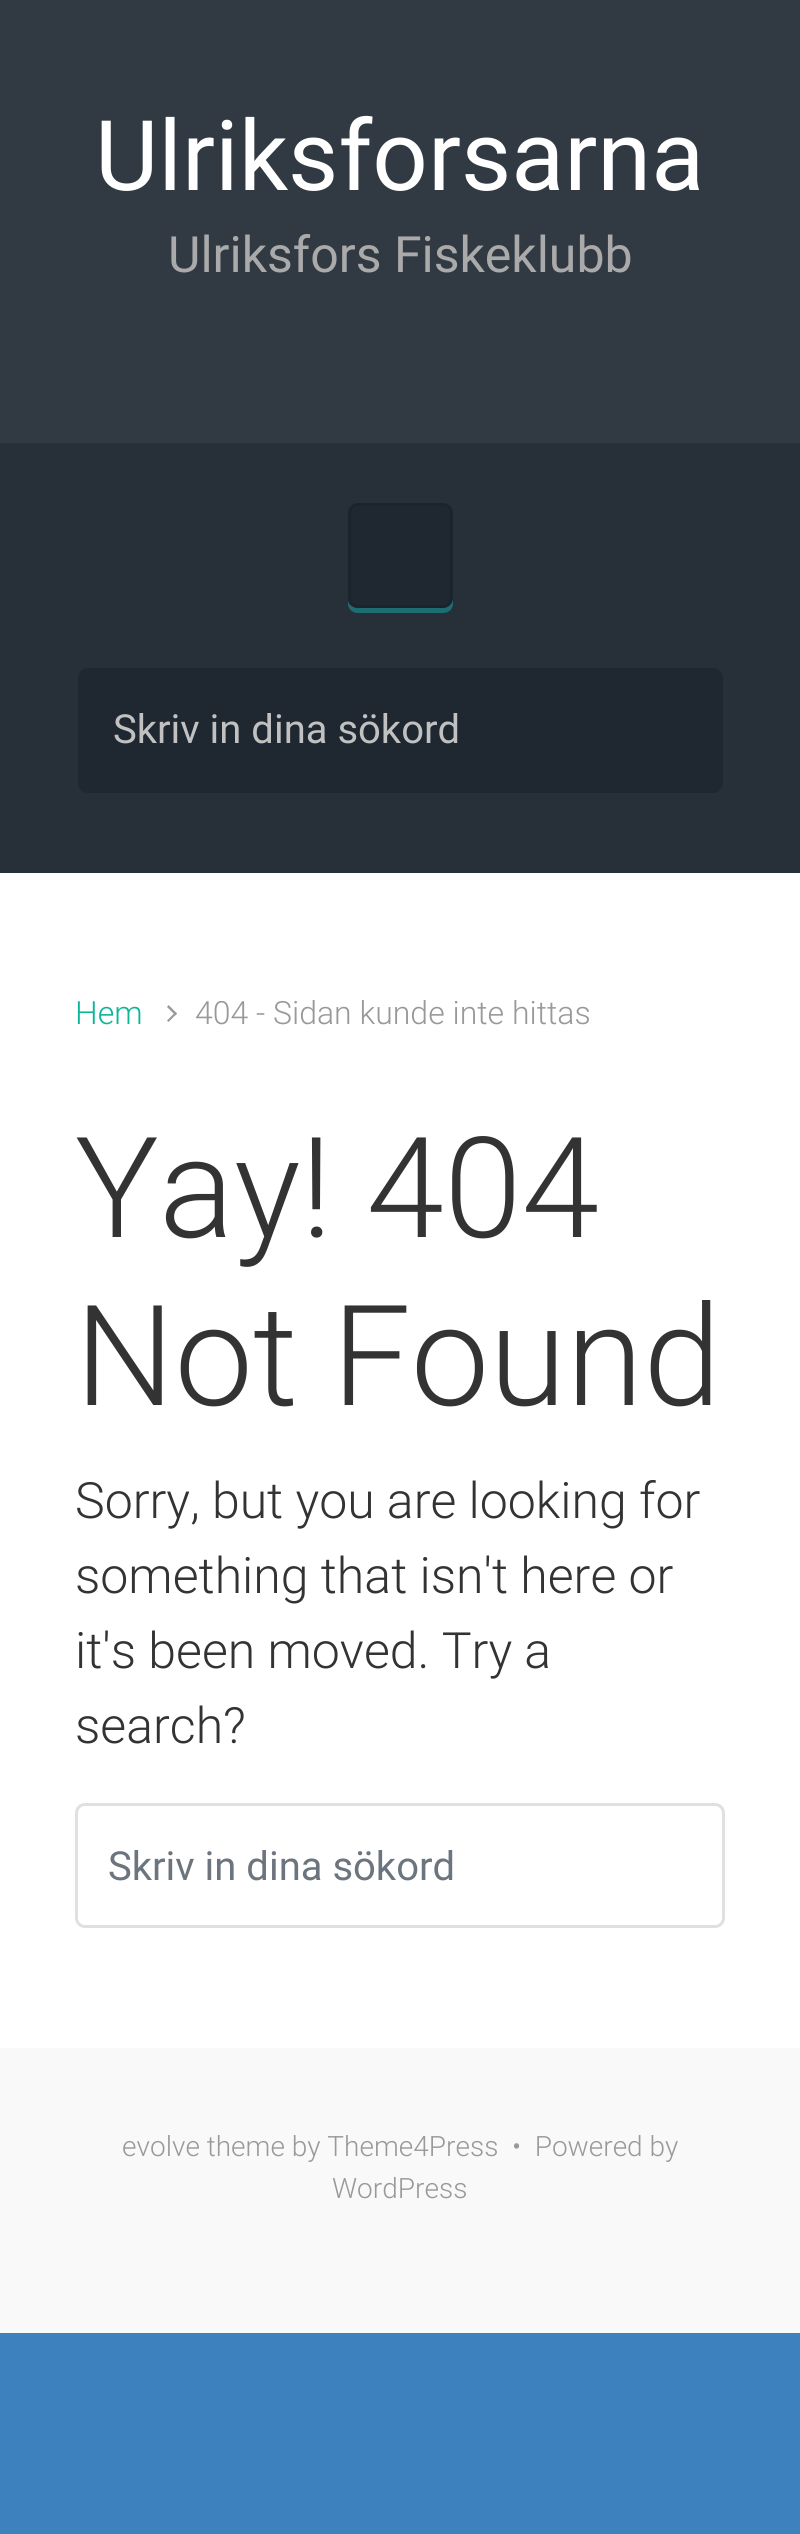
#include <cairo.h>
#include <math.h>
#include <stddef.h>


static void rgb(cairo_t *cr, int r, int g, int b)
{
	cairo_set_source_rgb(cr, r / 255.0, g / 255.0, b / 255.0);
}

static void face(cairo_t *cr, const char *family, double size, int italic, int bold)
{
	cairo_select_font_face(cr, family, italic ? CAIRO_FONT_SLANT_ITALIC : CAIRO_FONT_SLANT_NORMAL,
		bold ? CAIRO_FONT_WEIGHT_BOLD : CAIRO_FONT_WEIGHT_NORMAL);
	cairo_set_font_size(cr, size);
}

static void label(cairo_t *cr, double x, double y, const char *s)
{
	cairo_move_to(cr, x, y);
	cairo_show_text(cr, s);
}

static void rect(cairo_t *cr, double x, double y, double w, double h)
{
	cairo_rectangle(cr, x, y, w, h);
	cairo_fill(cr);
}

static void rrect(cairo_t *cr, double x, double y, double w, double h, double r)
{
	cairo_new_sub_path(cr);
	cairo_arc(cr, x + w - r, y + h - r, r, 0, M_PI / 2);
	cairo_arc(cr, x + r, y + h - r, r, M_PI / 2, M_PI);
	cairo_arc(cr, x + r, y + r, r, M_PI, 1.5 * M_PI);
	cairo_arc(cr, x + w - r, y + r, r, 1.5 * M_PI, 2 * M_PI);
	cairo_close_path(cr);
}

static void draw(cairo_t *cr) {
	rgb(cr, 61, 130, 191);
	cairo_paint(cr);
	rgb(cr, 249, 249, 249);
	rect(cr, 0, 2048, 800, 285);
	rgb(cr, 49, 58, 67);
	rect(cr, 0, 0, 800, 443);
	face(cr, "Roboto", 97.5, 0, 0);
	rgb(cr, 255, 255, 255);
	label(cr, 95, 190, "Ulriksforsarna");
	face(cr, "Roboto", 50, 0, 0);
	rgb(cr, 170, 170, 170);
	label(cr, 168, 272, "Ulriksfors Fiskeklubb");
	rgb(cr, 39, 48, 57);
	rect(cr, 0, 443, 800, 430);
	rgb(cr, 29, 110, 114);
	cairo_new_path(cr);
	cairo_move_to(cr, 348, 601);
	cairo_line_to(cr, 348, 603);
	cairo_curve_to(cr, 348, 609, 352, 613, 358, 613);
	cairo_line_to(cr, 443, 613);
	cairo_curve_to(cr, 449, 613, 453, 609, 453, 603);
	cairo_line_to(cr, 453, 518);
	cairo_line_to(cr, 452, 515);
	cairo_line_to(cr, 452, 598);
	cairo_curve_to(cr, 452, 603, 448, 608, 442, 608);
	cairo_line_to(cr, 358, 608);
	cairo_curve_to(cr, 353, 608, 349, 605, 348, 601);
	cairo_close_path(cr);
	cairo_fill(cr);
	rgb(cr, 31, 40, 49);
	rrect(cr, 349.5, 504.5, 102, 102, 8.5);
	cairo_fill_preserve(cr);
	rgb(cr, 27, 36, 45);
	cairo_set_line_width(cr, 3);
	cairo_stroke(cr);
	rgb(cr, 31, 40, 49);
	rrect(cr, 78, 668, 645, 125, 10);
	cairo_fill(cr);
	face(cr, "Roboto", 40, 0, 0);
	rgb(cr, 193, 193, 193);
	label(cr, 113, 743, "Skriv in dina sökord");
	rgb(cr, 255, 255, 255);
	rect(cr, 0, 873, 800, 1175);
	face(cr, "Roboto Light", 32, 0, 0);
	rgb(cr, 11, 182, 151);
	label(cr, 75, 1024, "Hem");
	rgb(cr, 153, 153, 153);
	cairo_new_path(cr);
	cairo_move_to(cr, 167, 1007);
	cairo_line_to(cr, 168.5, 1005);
	cairo_line_to(cr, 177, 1013.5);
	cairo_line_to(cr, 175.5, 1015.5);
	cairo_close_path(cr);
	cairo_fill(cr);
	cairo_new_path(cr);
	cairo_move_to(cr, 167, 1020.5);
	cairo_line_to(cr, 175.5, 1012);
	cairo_line_to(cr, 177, 1013.5);
	cairo_line_to(cr, 168.5, 1022);
	cairo_close_path(cr);
	cairo_fill(cr);
	label(cr, 195, 1024, "404 - Sidan kunde inte hittas");
	face(cr, "Roboto Light", 140, 0, 0);
	rgb(cr, 51, 51, 51);
	label(cr, 75, 1237, "Yay! 404");
	label(cr, 75, 1405, "Not Found");
	face(cr, "Roboto Light", 50, 0, 0);
	label(cr, 75, 1518, "Sorry, but you are looking for");
	label(cr, 75, 1593, "something that isn't here or");
	label(cr, 75, 1668, "it's been moved. Try a");
	label(cr, 75, 1743, "search?");
	rrect(cr, 76.5, 1804.5, 647, 122, 8.5);
	rgb(cr, 224, 224, 224);
	cairo_stroke(cr);
	face(cr, "Roboto", 40, 0, 0);
	rgb(cr, 108, 117, 125);
	label(cr, 108, 1880, "Skriv in dina sökord");
	face(cr, "Roboto Light", 28, 0, 0);
	rgb(cr, 153, 153, 153);
	label(cr, 122, 2156, "evolve theme by Theme4Press  •  Powered by");
	label(cr, 332, 2198, "WordPress");
}

int main(void) {
	cairo_surface_t *surface = cairo_image_surface_create(CAIRO_FORMAT_RGB24, 800, 2534);
	cairo_t *cr = cairo_create(surface);
	cairo_font_options_t *options = cairo_font_options_create();
	cairo_font_options_set_hint_metrics(options, CAIRO_HINT_METRICS_OFF);
	cairo_font_options_set_hint_style(options, CAIRO_HINT_STYLE_NONE);
	cairo_set_font_options(cr, options);
	cairo_set_miter_limit(cr, 4);
	draw(cr);
	cairo_surface_write_to_png(surface, "render.png");
	cairo_font_options_destroy(options);
	cairo_destroy(cr);
	cairo_surface_destroy(surface);
	return 0;
}
